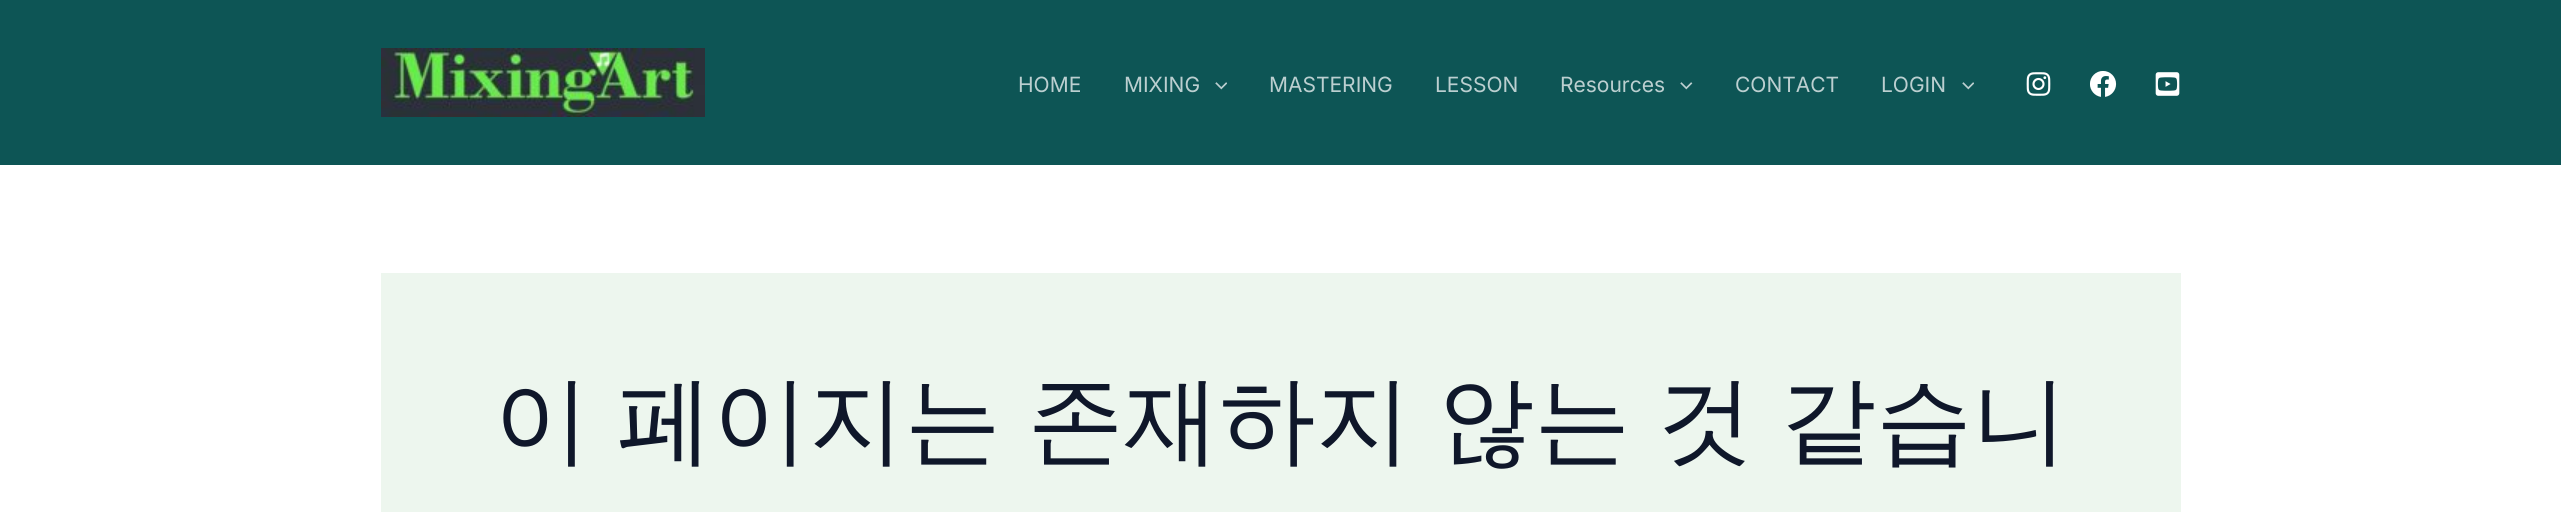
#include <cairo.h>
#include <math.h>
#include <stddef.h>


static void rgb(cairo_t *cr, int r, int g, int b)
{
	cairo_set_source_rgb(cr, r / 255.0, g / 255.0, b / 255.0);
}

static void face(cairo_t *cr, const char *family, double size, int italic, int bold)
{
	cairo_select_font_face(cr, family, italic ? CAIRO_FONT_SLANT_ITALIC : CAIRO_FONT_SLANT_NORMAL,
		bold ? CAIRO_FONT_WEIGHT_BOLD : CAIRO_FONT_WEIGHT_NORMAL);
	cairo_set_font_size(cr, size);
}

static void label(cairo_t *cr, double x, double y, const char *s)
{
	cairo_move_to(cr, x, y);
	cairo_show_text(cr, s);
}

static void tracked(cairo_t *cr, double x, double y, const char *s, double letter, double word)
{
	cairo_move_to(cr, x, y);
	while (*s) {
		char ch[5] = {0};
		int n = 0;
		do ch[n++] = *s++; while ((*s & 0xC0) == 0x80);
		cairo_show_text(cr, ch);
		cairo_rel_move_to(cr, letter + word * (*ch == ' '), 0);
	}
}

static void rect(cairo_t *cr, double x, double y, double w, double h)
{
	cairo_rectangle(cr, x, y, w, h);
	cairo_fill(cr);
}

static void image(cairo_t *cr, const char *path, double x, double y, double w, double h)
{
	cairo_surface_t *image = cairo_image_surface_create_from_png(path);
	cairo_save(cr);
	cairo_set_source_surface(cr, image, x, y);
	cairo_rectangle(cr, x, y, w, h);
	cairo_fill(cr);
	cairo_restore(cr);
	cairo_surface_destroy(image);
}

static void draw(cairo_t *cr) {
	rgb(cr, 255, 255, 255);
	cairo_paint(cr);
	rgb(cr, 13, 85, 85);
	rect(cr, 0, 0, 2561, 165);
	image(cr, "image0.png", 381, 48, 324, 69);
	face(cr, "Inter", 21, 0, 0);
	rgb(cr, 187, 207, 208);
	label(cr, 1018, 92, "HOME");
	label(cr, 1124, 92, "MIXING");
	image(cr, "image1.png", 1215, 82, 12, 8);
	label(cr, 1269, 92, "MASTERING");
	label(cr, 1435, 92, "LESSON");
	label(cr, 1560, 92, "Resources");
	image(cr, "image2.png", 1680, 82, 13, 8);
	label(cr, 1735, 92, "CONTACT");
	label(cr, 1881, 92, "LOGIN");
	image(cr, "image1.png", 1962, 82, 12, 8);
	image(cr, "image3.png", 2026, 72, 25, 24);
	image(cr, "image4.png", 2090, 71, 27, 26);
	image(cr, "image5.png", 2155, 72, 25, 24);
	rgb(cr, 237, 246, 238);
	rect(cr, 381, 273, 1800, 239);
	face(cr, "WenQuanYi Zen Hei Medium", 96, 0, 0);
	rgb(cr, 15, 23, 42);
	tracked(cr, 494, 453, "이 페이지는 존재하지 않는 것 같습니", 0, -2);
}

int main(void) {
	cairo_surface_t *surface = cairo_image_surface_create(CAIRO_FORMAT_RGB24, 2561, 512);
	cairo_t *cr = cairo_create(surface);
	cairo_font_options_t *options = cairo_font_options_create();
	cairo_font_options_set_hint_metrics(options, CAIRO_HINT_METRICS_OFF);
	cairo_font_options_set_hint_style(options, CAIRO_HINT_STYLE_NONE);
	cairo_set_font_options(cr, options);
	cairo_set_miter_limit(cr, 4);
	draw(cr);
	cairo_surface_write_to_png(surface, "render.png");
	cairo_font_options_destroy(options);
	cairo_destroy(cr);
	cairo_surface_destroy(surface);
	return 0;
}
